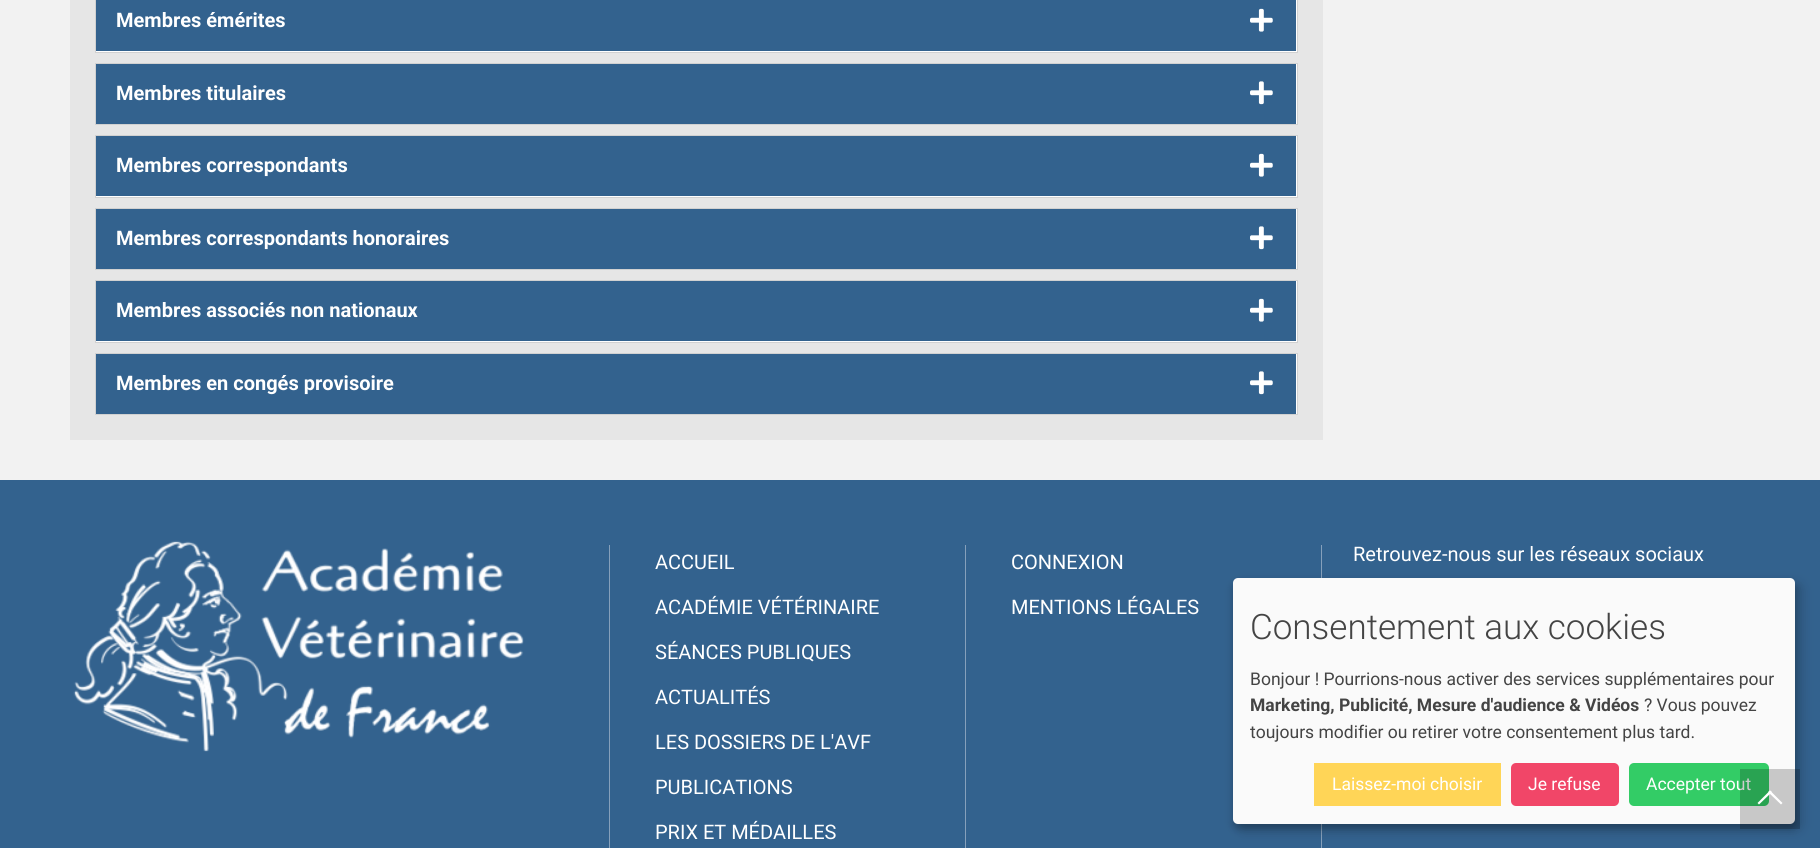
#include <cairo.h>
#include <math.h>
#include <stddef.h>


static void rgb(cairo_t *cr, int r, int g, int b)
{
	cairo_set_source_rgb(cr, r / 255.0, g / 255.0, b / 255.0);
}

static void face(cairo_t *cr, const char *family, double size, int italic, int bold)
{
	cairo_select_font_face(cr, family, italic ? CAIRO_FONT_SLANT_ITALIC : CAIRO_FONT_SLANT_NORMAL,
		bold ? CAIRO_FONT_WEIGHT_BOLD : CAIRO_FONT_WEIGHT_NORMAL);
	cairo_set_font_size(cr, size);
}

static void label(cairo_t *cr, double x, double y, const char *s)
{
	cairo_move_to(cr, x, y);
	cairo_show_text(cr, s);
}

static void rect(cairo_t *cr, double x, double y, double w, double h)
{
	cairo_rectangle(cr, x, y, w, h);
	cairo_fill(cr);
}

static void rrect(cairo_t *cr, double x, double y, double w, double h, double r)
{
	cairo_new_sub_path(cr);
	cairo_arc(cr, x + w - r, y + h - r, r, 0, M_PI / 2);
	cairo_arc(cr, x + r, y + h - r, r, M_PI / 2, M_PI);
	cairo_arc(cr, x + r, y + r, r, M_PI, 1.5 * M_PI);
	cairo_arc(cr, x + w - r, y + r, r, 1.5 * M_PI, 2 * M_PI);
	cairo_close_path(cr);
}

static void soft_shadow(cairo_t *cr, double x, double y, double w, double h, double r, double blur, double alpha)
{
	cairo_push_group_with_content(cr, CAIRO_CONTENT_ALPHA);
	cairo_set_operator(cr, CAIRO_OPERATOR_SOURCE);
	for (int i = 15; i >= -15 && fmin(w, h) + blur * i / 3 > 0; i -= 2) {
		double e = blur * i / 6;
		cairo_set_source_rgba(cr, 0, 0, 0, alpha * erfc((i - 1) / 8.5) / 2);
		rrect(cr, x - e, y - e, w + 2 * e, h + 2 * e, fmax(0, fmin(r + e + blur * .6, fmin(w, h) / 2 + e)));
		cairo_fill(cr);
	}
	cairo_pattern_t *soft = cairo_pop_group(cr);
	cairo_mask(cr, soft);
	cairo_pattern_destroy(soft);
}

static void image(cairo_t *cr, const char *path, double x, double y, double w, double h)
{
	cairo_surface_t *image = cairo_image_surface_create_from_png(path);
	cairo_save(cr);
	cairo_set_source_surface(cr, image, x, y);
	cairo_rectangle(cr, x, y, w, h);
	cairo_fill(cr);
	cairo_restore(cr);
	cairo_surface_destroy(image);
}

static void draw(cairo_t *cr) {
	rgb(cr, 242, 242, 242);
	cairo_paint(cr);
	rgb(cr, 230, 230, 230);
	rect(cr, 70, 0, 1253, 440);
	rgb(cr, 255, 255, 255);
	cairo_rectangle(cr, 95.5, -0.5, 1202, 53);
	cairo_fill_preserve(cr);
	rgb(cr, 209, 209, 209);
	cairo_set_line_width(cr, 1);
	cairo_stroke(cr);
	rgb(cr, 51, 98, 142);
	rect(cr, 96, 0, 1200, 51);
	face(cr, "Roboto", 20, 0, 1);
	rgb(cr, 255, 255, 255);
	label(cr, 116, 27, "Membres émérites");
	image(cr, "image0.png", 1250, 8, 23, 24);
	rect(cr, 1296, 64, 1, 60);
	cairo_rectangle(cr, 95.5, 63.5, 1202, 61);
	rgb(cr, 209, 209, 209);
	cairo_stroke(cr);
	rgb(cr, 51, 98, 142);
	rect(cr, 96, 64, 1200, 60);
	rgb(cr, 255, 255, 255);
	label(cr, 116, 100, "Membres titulaires");
	image(cr, "image1.png", 1250, 81, 23, 24);
	cairo_rectangle(cr, 95.5, 135.5, 1202, 62);
	cairo_fill_preserve(cr);
	rgb(cr, 209, 209, 209);
	cairo_stroke(cr);
	rgb(cr, 51, 98, 142);
	rect(cr, 96, 136, 1200, 60);
	rgb(cr, 255, 255, 255);
	label(cr, 116, 172, "Membres correspondants");
	image(cr, "image2.png", 1250, 153, 23, 24);
	rect(cr, 1296, 209, 1, 60);
	cairo_rectangle(cr, 95.5, 208.5, 1202, 61);
	rgb(cr, 209, 209, 209);
	cairo_stroke(cr);
	rgb(cr, 51, 98, 142);
	rect(cr, 96, 209, 1200, 60);
	rgb(cr, 255, 255, 255);
	label(cr, 116, 245, "Membres correspondants honoraires");
	image(cr, "image1.png", 1250, 226, 23, 24);
	cairo_rectangle(cr, 95.5, 280.5, 1202, 62);
	cairo_fill_preserve(cr);
	rgb(cr, 209, 209, 209);
	cairo_stroke(cr);
	rgb(cr, 51, 98, 142);
	rect(cr, 96, 281, 1200, 60);
	rgb(cr, 255, 255, 255);
	label(cr, 116, 317, "Membres associés non nationaux");
	image(cr, "image2.png", 1250, 298, 23, 24);
	rect(cr, 1296, 354, 1, 60);
	cairo_rectangle(cr, 95.5, 353.5, 1202, 61);
	rgb(cr, 209, 209, 209);
	cairo_stroke(cr);
	rgb(cr, 51, 98, 142);
	rect(cr, 96, 354, 1200, 60);
	rgb(cr, 255, 255, 255);
	label(cr, 116, 390, "Membres en congés provisoire");
	image(cr, "image1.png", 1250, 371, 23, 24);
	rgb(cr, 51, 98, 142);
	rect(cr, 0, 480, 1820, 368);
	image(cr, "image3.png", 73, 540, 451, 212);
	rgb(cr, 134, 160, 187);
	rect(cr, 609, 545, 1, 303);
	face(cr, "Roboto", 20, 0, 0);
	rgb(cr, 255, 255, 255);
	label(cr, 655, 569, "ACCUEIL");
	label(cr, 655, 614, "ACADÉMIE VÉTÉRINAIRE");
	label(cr, 655, 659, "SÉANCES PUBLIQUES");
	label(cr, 655, 704, "ACTUALITÉS");
	label(cr, 655, 749, "LES DOSSIERS DE L'AVF");
	label(cr, 655, 794, "PUBLICATIONS");
	label(cr, 655, 839, "PRIX ET MÉDAILLES");
	rgb(cr, 134, 160, 187);
	rect(cr, 965, 545, 1, 303);
	rgb(cr, 255, 255, 255);
	label(cr, 1011, 569, "CONNEXION");
	label(cr, 1011, 614, "MENTIONS LÉGALES");
	rgb(cr, 134, 160, 187);
	rect(cr, 1321, 545, 1, 303);
	rgb(cr, 255, 255, 255);
	label(cr, 1353, 561, "Retrouvez-nous sur les réseaux sociaux");
	rgb(cr, 0, 0, 0);
	soft_shadow(cr, 1239, 584, 562, 246, 5, 6, 0.19);
	soft_shadow(cr, 1233, 583, 562, 246, 5, 4, 0.2);
	rgb(cr, 250, 250, 250);
	rrect(cr, 1233, 578, 562, 246, 5);
	cairo_fill(cr);
	face(cr, "Roboto Light", 35, 0, 0);
	rgb(cr, 68, 68, 68);
	label(cr, 1250, 639, "Consentement aux cookies");
	face(cr, "Roboto", 17.5, 0, 0);
	label(cr, 1250, 685, "Bonjour ! Pourrions-nous activer des services supplémentaires pour");
	face(cr, "Roboto", 17.5, 0, 1);
	label(cr, 1250, 711, "Marketing, Publicité, Mesure d'audience & Vidéos");
	face(cr, "Roboto", 17.5, 0, 0);
	label(cr, 1644, 711, "? Vous pouvez");
	label(cr, 1250, 738, "toujours modifier ou retirer votre consentement plus tard.");
	rgb(cr, 255, 213, 87);
	rect(cr, 1314, 763, 187, 43);
	rgb(cr, 255, 255, 255);
	label(cr, 1332, 790, "Laissez-moi choisir");
	rgb(cr, 241, 70, 104);
	rrect(cr, 1511, 763, 108, 43, 5);
	cairo_fill(cr);
	rgb(cr, 255, 255, 255);
	label(cr, 1528, 790, "Je refuse");
	rgb(cr, 51, 204, 102);
	rrect(cr, 1629, 763, 140, 43, 5);
	cairo_fill(cr);
	rgb(cr, 255, 255, 255);
	label(cr, 1646, 790, "Accepter tout");
	cairo_set_source_rgba(cr, 0, 0, 0, 0.2);
	rect(cr, 1740, 769, 60, 60);
	rgb(cr, 255, 255, 255);
	cairo_new_path(cr);
	cairo_move_to(cr, 1770, 790.5);
	cairo_line_to(cr, 1782.5, 803);
	cairo_line_to(cr, 1781, 804.5);
	cairo_line_to(cr, 1768, 792);
	cairo_close_path(cr);
	cairo_fill(cr);
	cairo_new_path(cr);
	cairo_move_to(cr, 1770, 790.5);
	cairo_line_to(cr, 1772, 792);
	cairo_line_to(cr, 1759, 804.5);
	cairo_line_to(cr, 1757.5, 803);
	cairo_close_path(cr);
	cairo_fill(cr);
}

int main(void) {
	cairo_surface_t *surface = cairo_image_surface_create(CAIRO_FORMAT_RGB24, 1820, 848);
	cairo_t *cr = cairo_create(surface);
	cairo_font_options_t *options = cairo_font_options_create();
	cairo_font_options_set_hint_metrics(options, CAIRO_HINT_METRICS_OFF);
	cairo_font_options_set_hint_style(options, CAIRO_HINT_STYLE_NONE);
	cairo_set_font_options(cr, options);
	cairo_set_miter_limit(cr, 4);
	draw(cr);
	cairo_surface_write_to_png(surface, "render.png");
	cairo_font_options_destroy(options);
	cairo_destroy(cr);
	cairo_surface_destroy(surface);
	return 0;
}
